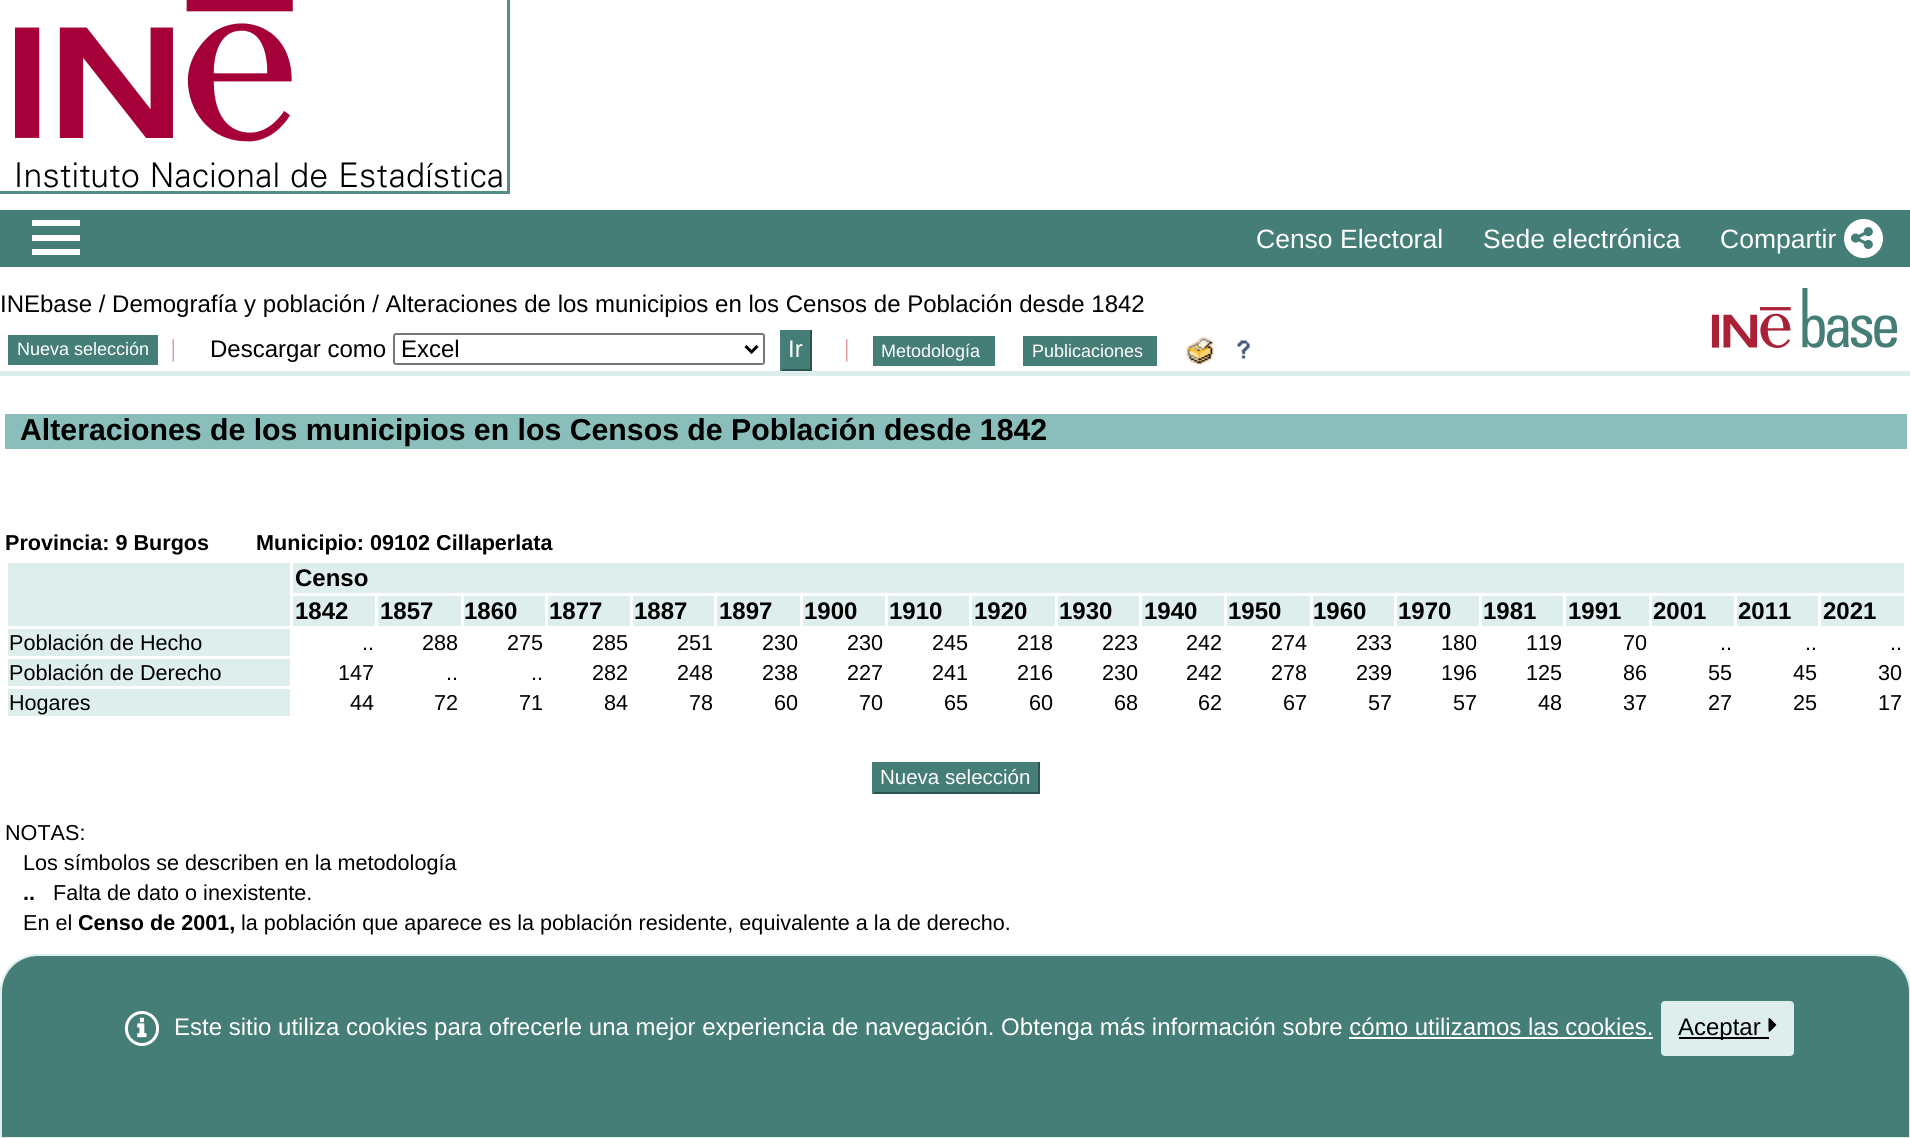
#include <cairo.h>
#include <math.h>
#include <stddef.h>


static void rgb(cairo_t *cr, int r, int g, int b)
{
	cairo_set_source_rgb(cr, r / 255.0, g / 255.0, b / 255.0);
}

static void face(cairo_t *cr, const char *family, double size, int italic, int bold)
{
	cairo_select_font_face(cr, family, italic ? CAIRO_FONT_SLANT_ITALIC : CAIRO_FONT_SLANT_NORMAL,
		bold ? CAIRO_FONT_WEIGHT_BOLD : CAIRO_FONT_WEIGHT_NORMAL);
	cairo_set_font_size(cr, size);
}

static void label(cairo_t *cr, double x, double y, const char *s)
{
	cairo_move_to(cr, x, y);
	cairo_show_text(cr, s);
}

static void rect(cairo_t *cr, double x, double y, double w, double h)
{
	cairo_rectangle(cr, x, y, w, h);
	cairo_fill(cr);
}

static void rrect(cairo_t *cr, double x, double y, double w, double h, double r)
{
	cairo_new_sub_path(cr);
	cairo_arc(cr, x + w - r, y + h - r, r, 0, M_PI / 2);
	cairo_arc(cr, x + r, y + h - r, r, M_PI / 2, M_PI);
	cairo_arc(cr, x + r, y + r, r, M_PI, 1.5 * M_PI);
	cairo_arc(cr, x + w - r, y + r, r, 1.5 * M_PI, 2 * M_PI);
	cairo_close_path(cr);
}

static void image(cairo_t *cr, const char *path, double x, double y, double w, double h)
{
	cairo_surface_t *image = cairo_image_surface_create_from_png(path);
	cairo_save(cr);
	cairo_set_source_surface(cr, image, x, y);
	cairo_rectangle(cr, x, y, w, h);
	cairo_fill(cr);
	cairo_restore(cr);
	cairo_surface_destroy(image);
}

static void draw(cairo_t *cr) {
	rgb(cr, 255, 255, 255);
	cairo_paint(cr);
	cairo_rectangle(cr, -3, -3, 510, 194);
	rgb(cr, 85, 142, 134);
	cairo_set_line_width(cr, 6);
	cairo_stroke(cr);
	cairo_rectangle(cr, -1.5, -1.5, 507, 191);
	rgb(cr, 255, 255, 255);
	cairo_set_line_width(cr, 3);
	cairo_stroke(cr);
	image(cr, "image0.png", 15, 0, 487, 188);
	rgb(cr, 69, 126, 118);
	rect(cr, 0, 210, 1910, 57);
	rgb(cr, 255, 255, 255);
	cairo_new_path(cr);
	cairo_move_to(cr, 80, 225);
	cairo_line_to(cr, 80, 220);
	cairo_line_to(cr, 32, 220);
	cairo_line_to(cr, 32, 226);
	cairo_line_to(cr, 80, 226);
	cairo_close_path(cr);
	cairo_move_to(cr, 80, 240);
	cairo_line_to(cr, 80, 235);
	cairo_line_to(cr, 32, 235);
	cairo_line_to(cr, 32, 241);
	cairo_line_to(cr, 80, 241);
	cairo_close_path(cr);
	cairo_move_to(cr, 80, 254);
	cairo_line_to(cr, 80, 249);
	cairo_line_to(cr, 32, 249);
	cairo_line_to(cr, 32, 255);
	cairo_line_to(cr, 80, 255);
	cairo_close_path(cr);
	cairo_fill(cr);
	face(cr, "Liberation Sans", 26.5, 0, 0);
	label(cr, 1256, 248, "Censo Electoral");
	label(cr, 1483, 248, "Sede electrónica");
	label(cr, 1720, 248, "Compartir");
	cairo_new_path(cr);
	cairo_arc(cr, 1863.5, 238.5, 19.5, 0, 2 * M_PI);
	cairo_fill(cr);
	image(cr, "image1.png", 1851, 227, 22, 22);
	rgb(cr, 221, 238, 236);
	rect(cr, 0, 371, 1910, 5);
	face(cr, "Liberation Sans", 24, 0, 0);
	rgb(cr, 0, 0, 0);
	label(cr, 0, 312, "INEbase / Demografía y población / Alteraciones de los municipios en los Censos de Población desde 1842");
	rgb(cr, 69, 126, 118);
	rect(cr, 8, 335, 150, 30);
	face(cr, "Liberation Sans", 18, 0, 0);
	rgb(cr, 255, 255, 255);
	label(cr, 17, 355, "Nueva selección");
	image(cr, "image2.png", 172, 339, 2, 23);
	face(cr, "Liberation Sans", 24, 0, 0);
	rgb(cr, 0, 0, 0);
	label(cr, 210, 357, "Descargar como");
	rrect(cr, 394, 334, 370, 30, 2);
	rgb(cr, 118, 118, 118);
	cairo_set_line_width(cr, 2);
	cairo_stroke(cr);
	cairo_new_path(cr);
	cairo_move_to(cr, 745.5, 346);
	cairo_line_to(cr, 751.5, 352);
	cairo_line_to(cr, 757.5, 346);
	rgb(cr, 0, 0, 0);
	cairo_set_line_width(cr, 3);
	cairo_stroke(cr);
	label(cr, 401, 357, "Excel");
	rgb(cr, 69, 126, 118);
	rect(cr, 782, 330, 28, 39);
	rgb(cr, 46, 84, 79);
	rect(cr, 810, 330, 2, 41);
	rect(cr, 780, 369, 32, 2);
	rgb(cr, 69, 126, 118);
	rect(cr, 780, 330, 2, 41);
	rgb(cr, 255, 255, 255);
	label(cr, 788, 357, "Ir");
	image(cr, "image3.png", 846, 339, 2, 23);
	rgb(cr, 69, 126, 118);
	rect(cr, 873, 336, 122, 30);
	face(cr, "Liberation Sans", 18, 0, 0);
	rgb(cr, 255, 255, 255);
	label(cr, 881, 357, "Metodología");
	rgb(cr, 69, 126, 118);
	rect(cr, 1023, 336, 134, 30);
	rgb(cr, 255, 255, 255);
	label(cr, 1032, 357, "Publicaciones");
	image(cr, "image4.png", 1186, 337, 28, 28);
	image(cr, "image5.png", 1237, 340, 13, 19);
	image(cr, "image6.png", 1711, 288, 187, 60);
	rgb(cr, 137, 190, 186);
	rect(cr, 5, 414, 1902, 35);
	face(cr, "Liberation Sans", 30.25, 0, 1);
	rgb(cr, 0, 0, 0);
	label(cr, 20, 440, "Alteraciones de los municipios en los Censos de Población desde 1842");
	face(cr, "Liberation Sans", 21.6, 0, 1);
	label(cr, 5, 550, "Provincia: 9 Burgos");
	label(cr, 256, 550, "Municipio: 09102 Cillaperlata");
	rgb(cr, 221, 238, 236);
	rect(cr, 8, 563, 282, 63);
	rect(cr, 293, 563, 1611, 30);
	face(cr, "Liberation Sans", 24, 0, 1);
	rgb(cr, 0, 0, 0);
	label(cr, 295, 586, "Censo");
	rgb(cr, 221, 238, 236);
	rect(cr, 293, 596, 82, 30);
	rgb(cr, 0, 0, 0);
	label(cr, 295, 619, "1842");
	rgb(cr, 221, 238, 236);
	rect(cr, 378, 596, 83, 30);
	rgb(cr, 0, 0, 0);
	label(cr, 380, 619, "1857");
	rgb(cr, 221, 238, 236);
	rect(cr, 464, 596, 81, 30);
	rgb(cr, 0, 0, 0);
	label(cr, 464, 619, "1860");
	rgb(cr, 221, 238, 236);
	rect(cr, 548, 596, 82, 30);
	rgb(cr, 0, 0, 0);
	label(cr, 549, 619, "1877");
	rgb(cr, 221, 238, 236);
	rect(cr, 633, 596, 81, 30);
	rgb(cr, 0, 0, 0);
	label(cr, 634, 619, "1887");
	rgb(cr, 221, 238, 236);
	rect(cr, 717, 596, 83, 30);
	rgb(cr, 0, 0, 0);
	label(cr, 719, 619, "1897");
	rgb(cr, 221, 238, 236);
	rect(cr, 803, 596, 82, 30);
	rgb(cr, 0, 0, 0);
	label(cr, 804, 619, "1900");
	rgb(cr, 221, 238, 236);
	rect(cr, 888, 596, 81, 30);
	rgb(cr, 0, 0, 0);
	label(cr, 889, 619, "1910");
	rgb(cr, 221, 238, 236);
	rect(cr, 972, 596, 83, 30);
	rgb(cr, 0, 0, 0);
	label(cr, 974, 619, "1920");
	rgb(cr, 221, 238, 236);
	rect(cr, 1058, 596, 81, 30);
	rgb(cr, 0, 0, 0);
	label(cr, 1059, 619, "1930");
	rgb(cr, 221, 238, 236);
	rect(cr, 1142, 596, 82, 30);
	rgb(cr, 0, 0, 0);
	label(cr, 1144, 619, "1940");
	rgb(cr, 221, 238, 236);
	rect(cr, 1227, 596, 83, 30);
	rgb(cr, 0, 0, 0);
	label(cr, 1228, 619, "1950");
	rgb(cr, 221, 238, 236);
	rect(cr, 1313, 596, 81, 30);
	rgb(cr, 0, 0, 0);
	label(cr, 1313, 619, "1960");
	rgb(cr, 221, 238, 236);
	rect(cr, 1397, 596, 82, 30);
	rgb(cr, 0, 0, 0);
	label(cr, 1398, 619, "1970");
	rgb(cr, 221, 238, 236);
	rect(cr, 1482, 596, 81, 30);
	rgb(cr, 0, 0, 0);
	label(cr, 1483, 619, "1981");
	rgb(cr, 221, 238, 236);
	rect(cr, 1566, 596, 83, 30);
	rgb(cr, 0, 0, 0);
	label(cr, 1568, 619, "1991");
	rgb(cr, 221, 238, 236);
	rect(cr, 1652, 596, 82, 30);
	rgb(cr, 0, 0, 0);
	label(cr, 1653, 619, "2001");
	rgb(cr, 221, 238, 236);
	rect(cr, 1737, 596, 81, 30);
	rgb(cr, 0, 0, 0);
	label(cr, 1738, 619, "2011");
	rgb(cr, 221, 238, 236);
	rect(cr, 1821, 596, 83, 30);
	rgb(cr, 0, 0, 0);
	label(cr, 1823, 619, "2021");
	rgb(cr, 221, 238, 236);
	rect(cr, 8, 629, 282, 27);
	face(cr, "Liberation Sans", 21.6, 0, 0);
	rgb(cr, 0, 0, 0);
	label(cr, 9, 650, "Población de Hecho");
	label(cr, 362, 650, "..");
	label(cr, 422, 650, "288");
	label(cr, 507, 650, "275");
	label(cr, 592, 650, "285");
	label(cr, 677, 650, "251");
	label(cr, 762, 650, "230");
	label(cr, 847, 650, "230");
	label(cr, 932, 650, "245");
	label(cr, 1017, 650, "218");
	label(cr, 1102, 650, "223");
	label(cr, 1186, 650, "242");
	label(cr, 1271, 650, "274");
	label(cr, 1356, 650, "233");
	label(cr, 1441, 650, "180");
	label(cr, 1526, 650, "119");
	label(cr, 1623, 650, "70");
	label(cr, 1720, 650, "..");
	label(cr, 1805, 650, "..");
	label(cr, 1890, 650, "..");
	rgb(cr, 221, 238, 236);
	rect(cr, 8, 659, 282, 27);
	rgb(cr, 0, 0, 0);
	label(cr, 9, 680, "Población de Derecho");
	label(cr, 338, 680, "147");
	label(cr, 446, 680, "..");
	label(cr, 531, 680, "..");
	label(cr, 592, 680, "282");
	label(cr, 677, 680, "248");
	label(cr, 762, 680, "238");
	label(cr, 847, 680, "227");
	label(cr, 932, 680, "241");
	label(cr, 1017, 680, "216");
	label(cr, 1102, 680, "230");
	label(cr, 1186, 680, "242");
	label(cr, 1271, 680, "278");
	label(cr, 1356, 680, "239");
	label(cr, 1441, 680, "196");
	label(cr, 1526, 680, "125");
	label(cr, 1623, 680, "86");
	label(cr, 1708, 680, "55");
	label(cr, 1793, 680, "45");
	label(cr, 1878, 680, "30");
	rgb(cr, 221, 238, 236);
	rect(cr, 8, 689, 282, 27);
	rgb(cr, 0, 0, 0);
	label(cr, 9, 710, "Hogares");
	label(cr, 350, 710, "44");
	label(cr, 434, 710, "72");
	label(cr, 519, 710, "71");
	label(cr, 604, 710, "84");
	label(cr, 689, 710, "78");
	label(cr, 774, 710, "60");
	label(cr, 859, 710, "70");
	label(cr, 944, 710, "65");
	label(cr, 1029, 710, "60");
	label(cr, 1114, 710, "68");
	label(cr, 1198, 710, "62");
	label(cr, 1283, 710, "67");
	label(cr, 1368, 710, "57");
	label(cr, 1453, 710, "57");
	label(cr, 1538, 710, "48");
	label(cr, 1623, 710, "37");
	label(cr, 1708, 710, "27");
	label(cr, 1793, 710, "25");
	label(cr, 1878, 710, "17");
	rgb(cr, 69, 126, 118);
	rect(cr, 874, 762, 164, 30);
	rgb(cr, 46, 84, 79);
	rect(cr, 1038, 762, 2, 32);
	rect(cr, 872, 792, 168, 2);
	rgb(cr, 69, 126, 118);
	rect(cr, 872, 762, 2, 32);
	face(cr, "Liberation Sans", 20.5, 0, 0);
	rgb(cr, 255, 255, 255);
	label(cr, 880, 784, "Nueva selección");
	face(cr, "Liberation Sans", 21.6, 0, 0);
	rgb(cr, 0, 0, 0);
	label(cr, 5, 840, "NOTAS:");
	label(cr, 23, 870, "Los símbolos se describen en la metodología");
	face(cr, "Liberation Sans", 21.6, 0, 1);
	label(cr, 23, 900, "..");
	face(cr, "Liberation Sans", 21.6, 0, 0);
	label(cr, 53, 900, "Falta de dato o inexistente.");
	label(cr, 23, 930, "En el");
	face(cr, "Liberation Sans", 21.6, 0, 1);
	label(cr, 78, 930, "Censo de 2001,");
	face(cr, "Liberation Sans", 21.6, 0, 0);
	label(cr, 241, 930, "la población que aparece es la población residente, equivalente a la de derecho.");
	rgb(cr, 69, 126, 118);
	cairo_new_path(cr);
	cairo_move_to(cr, 38, 955);
	cairo_line_to(cr, 1873, 955);
	cairo_curve_to(cr, 1893.5, 955, 1910, 971.5, 1910, 992);
	cairo_line_to(cr, 1910, 1138);
	cairo_line_to(cr, 1, 1138);
	cairo_line_to(cr, 1, 992);
	cairo_curve_to(cr, 1, 971.5, 17.5, 955, 38, 955);
	cairo_close_path(cr);
	cairo_fill_preserve(cr);
	rgb(cr, 221, 238, 236);
	cairo_set_line_width(cr, 2);
	cairo_stroke(cr);
	rrect(cr, 126.5, 1012.5, 31, 32, 15.5);
	rgb(cr, 255, 255, 255);
	cairo_set_line_width(cr, 3);
	cairo_stroke(cr);
	image(cr, "image7.png", 137, 1017, 10, 21);
	face(cr, "Liberation Sans", 24, 0, 0);
	label(cr, 174, 1035, "Este sitio utiliza cookies para ofrecerle una mejor experiencia de navegación. Obtenga más información sobre cómo utilizamos las cookies.");
	rgb(cr, 221, 238, 236);
	rrect(cr, 1660, 1000, 135, 57, 5);
	cairo_fill_preserve(cr);
	rgb(cr, 69, 126, 118);
	cairo_set_line_width(cr, 2);
	cairo_stroke(cr);
	rgb(cr, 0, 0, 0);
	rect(cr, 1679, 1037, 90, 2);
	label(cr, 1678, 1035, "Aceptar");
	image(cr, "image8.png", 1768, 1018, 9, 14);
	rgb(cr, 255, 255, 255);
	rect(cr, 1349, 1037, 304, 2);
}

int main(void) {
	cairo_surface_t *surface = cairo_image_surface_create(CAIRO_FORMAT_RGB24, 1910, 1138);
	cairo_t *cr = cairo_create(surface);
	cairo_font_options_t *options = cairo_font_options_create();
	cairo_font_options_set_hint_metrics(options, CAIRO_HINT_METRICS_OFF);
	cairo_font_options_set_hint_style(options, CAIRO_HINT_STYLE_NONE);
	cairo_set_font_options(cr, options);
	cairo_set_miter_limit(cr, 4);
	draw(cr);
	cairo_surface_write_to_png(surface, "render.png");
	cairo_font_options_destroy(options);
	cairo_destroy(cr);
	cairo_surface_destroy(surface);
	return 0;
}
